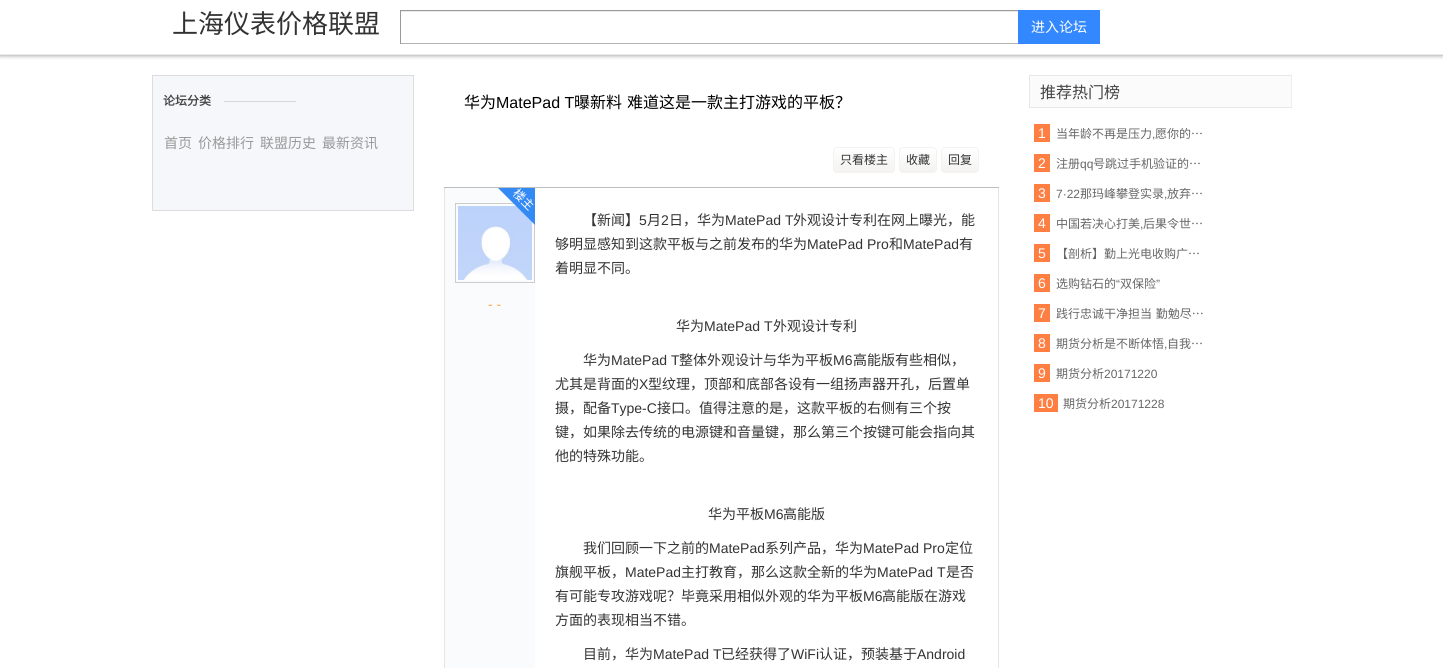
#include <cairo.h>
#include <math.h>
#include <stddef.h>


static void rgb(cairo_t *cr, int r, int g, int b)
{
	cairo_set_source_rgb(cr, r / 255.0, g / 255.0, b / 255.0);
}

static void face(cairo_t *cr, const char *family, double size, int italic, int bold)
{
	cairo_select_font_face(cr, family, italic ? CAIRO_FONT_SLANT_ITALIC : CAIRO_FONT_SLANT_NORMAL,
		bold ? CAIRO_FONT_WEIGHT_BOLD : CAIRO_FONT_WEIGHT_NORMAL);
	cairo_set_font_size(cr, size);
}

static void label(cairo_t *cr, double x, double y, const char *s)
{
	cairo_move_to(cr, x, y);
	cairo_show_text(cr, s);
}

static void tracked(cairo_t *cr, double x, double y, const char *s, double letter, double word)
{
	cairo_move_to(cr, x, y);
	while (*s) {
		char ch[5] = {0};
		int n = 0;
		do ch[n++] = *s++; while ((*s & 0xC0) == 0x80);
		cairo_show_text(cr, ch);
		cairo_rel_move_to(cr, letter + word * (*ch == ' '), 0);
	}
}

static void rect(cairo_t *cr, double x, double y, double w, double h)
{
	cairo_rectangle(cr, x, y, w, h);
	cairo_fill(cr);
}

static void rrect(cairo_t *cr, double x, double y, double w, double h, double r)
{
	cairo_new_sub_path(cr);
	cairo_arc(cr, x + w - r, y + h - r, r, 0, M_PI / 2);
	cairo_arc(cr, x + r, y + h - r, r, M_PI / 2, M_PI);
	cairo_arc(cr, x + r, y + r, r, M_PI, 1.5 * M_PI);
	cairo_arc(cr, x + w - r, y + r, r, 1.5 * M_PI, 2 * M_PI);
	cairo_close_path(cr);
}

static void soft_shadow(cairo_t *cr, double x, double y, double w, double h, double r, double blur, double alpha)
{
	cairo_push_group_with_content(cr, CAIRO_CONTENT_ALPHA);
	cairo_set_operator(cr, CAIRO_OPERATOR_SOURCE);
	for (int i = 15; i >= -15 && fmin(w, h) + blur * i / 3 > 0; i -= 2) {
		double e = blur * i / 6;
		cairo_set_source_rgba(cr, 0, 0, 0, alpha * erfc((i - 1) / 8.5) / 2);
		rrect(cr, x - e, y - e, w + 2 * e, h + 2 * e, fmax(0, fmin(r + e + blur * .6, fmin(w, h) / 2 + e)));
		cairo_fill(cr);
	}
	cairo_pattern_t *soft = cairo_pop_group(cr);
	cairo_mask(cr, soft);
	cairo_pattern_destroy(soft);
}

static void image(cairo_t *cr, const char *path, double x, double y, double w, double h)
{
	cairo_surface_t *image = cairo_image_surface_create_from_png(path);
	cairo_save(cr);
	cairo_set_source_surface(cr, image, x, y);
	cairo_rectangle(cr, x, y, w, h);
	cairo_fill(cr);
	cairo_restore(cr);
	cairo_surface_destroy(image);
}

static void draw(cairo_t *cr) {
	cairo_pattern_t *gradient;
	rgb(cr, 255, 255, 255);
	cairo_paint(cr);
	cairo_save(cr);
	cairo_rectangle(cr, 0, 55, 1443, 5);
	cairo_clip(cr);
	rgb(cr, 136, 136, 136);
	soft_shadow(cr, 0, 0, 1443, 55, 0, 2.5, 1);
	cairo_restore(cr);
	rgb(cr, 235, 235, 235);
	rect(cr, 0, 54, 1443, 1);
	face(cr, "Noto Sans CJK SC", 26, 0, 0);
	rgb(cr, 51, 51, 51);
	label(cr, 172, 33, "上海仪表价格联盟");
	rgb(cr, 236, 236, 236);
	rect(cr, 401, 11, 617, 1);
	rgb(cr, 153, 153, 153);
	rect(cr, 400, 10, 619, 1);
	rgb(cr, 179, 179, 179);
	rect(cr, 400, 43, 619, 1);
	rgb(cr, 153, 153, 153);
	rect(cr, 400, 10, 1, 34);
	rgb(cr, 51, 136, 255);
	rect(cr, 1018, 10, 82, 34);
	face(cr, "Noto Sans CJK SC", 14, 0, 0);
	rgb(cr, 255, 255, 255);
	label(cr, 1031, 32, "进入论坛");
	rgb(cr, 246, 247, 250);
	cairo_rectangle(cr, 152.5, 75.5, 261, 135);
	cairo_fill_preserve(cr);
	rgb(cr, 220, 220, 220);
	cairo_set_line_width(cr, 1);
	cairo_stroke(cr);
	face(cr, "Noto Sans CJK SC", 12, 0, 1);
	rgb(cr, 68, 68, 68);
	label(cr, 163, 105, "论坛分类");
	rgb(cr, 215, 215, 215);
	rect(cr, 224, 101, 72, 1);
	face(cr, "Noto Sans CJK SC", 14, 0, 0);
	rgb(cr, 153, 153, 153);
	label(cr, 164, 148, "首页");
	label(cr, 198, 148, "价格排行");
	label(cr, 260, 148, "联盟历史");
	label(cr, 322, 148, "最新资讯");
	rgb(cr, 187, 189, 191);
	rect(cr, 444, 187, 555, 1);
	face(cr, "Noto Sans CJK SC", 16, 0, 0);
	rgb(cr, 0, 0, 0);
	label(cr, 464, 108, "华为");
	face(cr, "Liberation Sans", 16, 0, 0);
	label(cr, 496, 108, "MatePad T");
	face(cr, "Noto Sans CJK SC", 16, 0, 0);
	label(cr, 574, 108, "曝新料");
	label(cr, 627, 108, "难道这是一款主打游戏的平板？");
	cairo_save(cr);
	rrect(cr, 833, 147, 62, 26, 4);
	cairo_clip(cr);
	gradient = cairo_pattern_create_linear(864, 148, 864, 172);
	cairo_pattern_add_color_stop_rgba(gradient, 0, 1, 1, 1, 1);
	cairo_pattern_add_color_stop_rgba(gradient, 1, 0.957, 0.953, 0.949, 1);
	cairo_set_source(cr, gradient);
	cairo_pattern_destroy(gradient);
	rect(cr, 833, 148, 62, 24);
	cairo_restore(cr);
	rrect(cr, 833.5, 147.5, 61, 25, 3.5);
	rgb(cr, 244, 243, 242);
	cairo_stroke(cr);
	face(cr, "Noto Sans CJK SC", 12, 0, 0);
	rgb(cr, 51, 51, 51);
	label(cr, 840, 164, "只看楼主");
	cairo_save(cr);
	rrect(cr, 899, 147, 38, 26, 4);
	cairo_clip(cr);
	gradient = cairo_pattern_create_linear(918, 148, 918, 172);
	cairo_pattern_add_color_stop_rgba(gradient, 0, 1, 1, 1, 1);
	cairo_pattern_add_color_stop_rgba(gradient, 1, 0.957, 0.953, 0.949, 1);
	cairo_set_source(cr, gradient);
	cairo_pattern_destroy(gradient);
	rect(cr, 899, 148, 38, 24);
	cairo_restore(cr);
	rrect(cr, 899.5, 147.5, 37, 25, 3.5);
	rgb(cr, 244, 243, 242);
	cairo_stroke(cr);
	rgb(cr, 51, 51, 51);
	label(cr, 906, 164, "收藏");
	cairo_save(cr);
	rrect(cr, 941, 147, 38, 26, 4);
	cairo_clip(cr);
	gradient = cairo_pattern_create_linear(960, 148, 960, 172);
	cairo_pattern_add_color_stop_rgba(gradient, 0, 1, 1, 1, 1);
	cairo_pattern_add_color_stop_rgba(gradient, 1, 0.957, 0.953, 0.949, 1);
	cairo_set_source(cr, gradient);
	cairo_pattern_destroy(gradient);
	rect(cr, 941, 148, 38, 24);
	cairo_restore(cr);
	rrect(cr, 941.5, 147.5, 37, 25, 3.5);
	rgb(cr, 244, 243, 242);
	cairo_stroke(cr);
	rgb(cr, 51, 51, 51);
	label(cr, 948, 164, "回复");
	rgb(cr, 250, 251, 252);
	rect(cr, 445, 188, 90, 480);
	rgb(cr, 229, 229, 229);
	rect(cr, 998, 188, 1, 480);
	rect(cr, 444, 188, 1, 480);
	cairo_rectangle(cr, 455.5, 203.5, 79, 79);
	rgb(cr, 204, 204, 204);
	cairo_stroke(cr);
	image(cr, "image0.png", 458, 206, 74, 74);
	cairo_save(cr);
	cairo_rectangle(cr, 455, 188, 80, 142);
	cairo_clip(cr);
	rgb(cr, 52, 138, 244);
	cairo_new_path(cr);
	cairo_move_to(cr, 535, 151);
	cairo_line_to(cr, 572, 188);
	cairo_line_to(cr, 535, 225);
	cairo_line_to(cr, 498, 188);
	cairo_close_path(cr);
	cairo_fill(cr);
	cairo_restore(cr);
	rgb(cr, 255, 255, 255);
	cairo_save(cr);
	cairo_translate(cr, 512, 194);
	cairo_rotate(cr, 45 * M_PI / 180);
	label(cr, 0, 0, "楼主");
	cairo_restore(cr);
	face(cr, "Liberation Sans", 14, 0, 0);
	rgb(cr, 255, 166, 64);
	label(cr, 488, 309, "- -");
	face(cr, "Noto Sans CJK SC", 14, 0, 0);
	rgb(cr, 51, 51, 51);
	label(cr, 583, 225, "【新闻】");
	face(cr, "Liberation Sans", 14, 0, 0);
	label(cr, 639, 225, "5");
	face(cr, "Noto Sans CJK SC", 14, 0, 0);
	label(cr, 647, 225, "月");
	face(cr, "Liberation Sans", 14, 0, 0);
	label(cr, 661, 225, "2");
	face(cr, "Noto Sans CJK SC", 14, 0, 0);
	label(cr, 669, 225, "日，华为");
	face(cr, "Liberation Sans", 14, 0, 0);
	label(cr, 725, 225, "MatePad T");
	face(cr, "Noto Sans CJK SC", 14, 0, 0);
	label(cr, 793, 225, "外观设计专利在网上曝光，能");
	label(cr, 555, 249, "够明显感知到这款平板与之前发布的华为");
	face(cr, "Liberation Sans", 14, 0, 0);
	label(cr, 807, 249, "MatePad Pro");
	face(cr, "Noto Sans CJK SC", 14, 0, 0);
	label(cr, 889, 249, "和");
	face(cr, "Liberation Sans", 14, 0, 0);
	label(cr, 903, 249, "MatePad");
	face(cr, "Noto Sans CJK SC", 14, 0, 0);
	label(cr, 959, 249, "有");
	label(cr, 555, 273, "着明显不同。");
	label(cr, 676, 331, "华为");
	face(cr, "Liberation Sans", 14, 0, 0);
	label(cr, 704, 331, "MatePad T");
	face(cr, "Noto Sans CJK SC", 14, 0, 0);
	label(cr, 773, 331, "外观设计专利");
	label(cr, 583, 365, "华为");
	face(cr, "Liberation Sans", 14, 0, 0);
	label(cr, 611, 365, "MatePad T");
	face(cr, "Noto Sans CJK SC", 14, 0, 0);
	label(cr, 679, 365, "整体外观设计与华为平板");
	face(cr, "Liberation Sans", 14, 0, 0);
	label(cr, 833, 365, "M6");
	face(cr, "Noto Sans CJK SC", 14, 0, 0);
	label(cr, 853, 365, "高能版有些相似，");
	label(cr, 555, 389, "尤其是背面的");
	face(cr, "Liberation Sans", 14, 0, 0);
	label(cr, 639, 389, "X");
	face(cr, "Noto Sans CJK SC", 14, 0, 0);
	label(cr, 648, 389, "型纹理，顶部和底部各设有一组扬声器开孔，后置单");
	label(cr, 555, 413, "摄，配备");
	face(cr, "Liberation Sans", 14, 0, 0);
	label(cr, 611, 413, "Type-C");
	face(cr, "Noto Sans CJK SC", 14, 0, 0);
	label(cr, 657, 413, "接口。值得注意的是，这款平板的右侧有三个按");
	label(cr, 555, 437, "键，如果除去传统的电源键和音量键，那么第三个按键可能会指向其");
	label(cr, 555, 461, "他的特殊功能。");
	label(cr, 708, 519, "华为平板");
	face(cr, "Liberation Sans", 14, 0, 0);
	label(cr, 764, 519, "M6");
	face(cr, "Noto Sans CJK SC", 14, 0, 0);
	label(cr, 783, 519, "高能版");
	label(cr, 583, 553, "我们回顾一下之前的");
	face(cr, "Liberation Sans", 14, 0, 0);
	label(cr, 709, 553, "MatePad");
	face(cr, "Noto Sans CJK SC", 14, 0, 0);
	label(cr, 765, 553, "系列产品，华为");
	face(cr, "Liberation Sans", 14, 0, 0);
	label(cr, 863, 553, "MatePad Pro");
	face(cr, "Noto Sans CJK SC", 14, 0, 0);
	label(cr, 945, 553, "定位");
	label(cr, 555, 577, "旗舰平板，");
	face(cr, "Liberation Sans", 14, 0, 0);
	label(cr, 625, 577, "MatePad");
	face(cr, "Noto Sans CJK SC", 14, 0, 0);
	label(cr, 681, 577, "主打教育，那么这款全新的华为");
	face(cr, "Liberation Sans", 14, 0, 0);
	label(cr, 877, 577, "MatePad T");
	face(cr, "Noto Sans CJK SC", 14, 0, 0);
	label(cr, 946, 577, "是否");
	label(cr, 555, 601, "有可能专攻游戏呢？毕竟采用相似外观的华为平板");
	face(cr, "Liberation Sans", 14, 0, 0);
	label(cr, 863, 601, "M6");
	face(cr, "Noto Sans CJK SC", 14, 0, 0);
	label(cr, 882, 601, "高能版在游戏");
	label(cr, 555, 625, "方面的表现相当不错。");
	label(cr, 583, 659, "目前，华为");
	face(cr, "Liberation Sans", 14, 0, 0);
	label(cr, 653, 659, "MatePad T");
	face(cr, "Noto Sans CJK SC", 14, 0, 0);
	label(cr, 721, 659, "已经获得了");
	face(cr, "Liberation Sans", 14, 0, 0);
	label(cr, 791, 659, "WiFi");
	face(cr, "Noto Sans CJK SC", 14, 0, 0);
	label(cr, 819, 659, "认证，预装基于");
	face(cr, "Liberation Sans", 14, 0, 0);
	label(cr, 917, 659, "Android");
	rgb(cr, 251, 251, 251);
	rect(cr, 1030, 76, 261, 31);
	rgb(cr, 231, 231, 231);
	rect(cr, 1029, 75, 263, 1);
	rgb(cr, 238, 238, 238);
	rect(cr, 1291, 75, 1, 33);
	rgb(cr, 231, 231, 231);
	rect(cr, 1029, 107, 263, 1);
	rect(cr, 1029, 75, 1, 33);
	face(cr, "Noto Sans CJK SC", 16, 0, 0);
	rgb(cr, 68, 68, 68);
	label(cr, 1040, 98, "推荐热门榜");
	rgb(cr, 255, 127, 66);
	rect(cr, 1034, 124, 16, 18);
	face(cr, "Liberation Sans", 14, 0, 0);
	rgb(cr, 255, 255, 255);
	label(cr, 1038, 138, "1");
	face(cr, "Noto Sans CJK SC", 12, 0, 0);
	rgb(cr, 102, 102, 102);
	label(cr, 1056, 138, "当年龄不再是压力");
	face(cr, "Liberation Sans", 12, 0, 0);
	label(cr, 1152, 138, ",");
	face(cr, "Noto Sans CJK SC", 12, 0, 0);
	label(cr, 1155, 138, "愿你的…");
	rgb(cr, 255, 127, 66);
	rect(cr, 1034, 154, 16, 18);
	face(cr, "Liberation Sans", 14, 0, 0);
	rgb(cr, 255, 255, 255);
	label(cr, 1038, 168, "2");
	face(cr, "Noto Sans CJK SC", 12, 0, 0);
	rgb(cr, 102, 102, 102);
	label(cr, 1056, 168, "注册");
	face(cr, "Liberation Sans", 12, 0, 0);
	label(cr, 1080, 168, "qq");
	face(cr, "Noto Sans CJK SC", 12, 0, 0);
	label(cr, 1093, 168, "号跳过手机验证的…");
	rgb(cr, 255, 127, 66);
	rect(cr, 1034, 184, 16, 18);
	face(cr, "Liberation Sans", 14, 0, 0);
	rgb(cr, 255, 255, 255);
	label(cr, 1038, 198, "3");
	face(cr, "Liberation Sans", 12, 0, 0);
	rgb(cr, 102, 102, 102);
	label(cr, 1056, 198, "7·22");
	face(cr, "Noto Sans CJK SC", 12, 0, 0);
	label(cr, 1080, 198, "那玛峰攀登实录");
	face(cr, "Liberation Sans", 12, 0, 0);
	label(cr, 1164, 198, ",");
	face(cr, "Noto Sans CJK SC", 12, 0, 0);
	label(cr, 1167, 198, "放弃…");
	rgb(cr, 255, 127, 66);
	rect(cr, 1034, 214, 16, 18);
	face(cr, "Liberation Sans", 14, 0, 0);
	rgb(cr, 255, 255, 255);
	label(cr, 1038, 228, "4");
	face(cr, "Noto Sans CJK SC", 12, 0, 0);
	rgb(cr, 102, 102, 102);
	label(cr, 1056, 228, "中国若决心打美");
	face(cr, "Liberation Sans", 12, 0, 0);
	label(cr, 1140, 228, ",");
	face(cr, "Noto Sans CJK SC", 12, 0, 0);
	label(cr, 1143, 228, "后果令世…");
	rgb(cr, 255, 127, 66);
	rect(cr, 1034, 244, 16, 18);
	face(cr, "Liberation Sans", 14, 0, 0);
	rgb(cr, 255, 255, 255);
	label(cr, 1038, 258, "5");
	face(cr, "Noto Sans CJK SC", 12, 0, 0);
	rgb(cr, 102, 102, 102);
	label(cr, 1056, 258, "【剖析】勤上光电收购广…");
	rgb(cr, 255, 127, 66);
	rect(cr, 1034, 274, 16, 18);
	face(cr, "Liberation Sans", 14, 0, 0);
	rgb(cr, 255, 255, 255);
	label(cr, 1038, 288, "6");
	face(cr, "Noto Sans CJK SC", 12, 0, 0);
	rgb(cr, 102, 102, 102);
	label(cr, 1056, 288, "选购钻石的");
	face(cr, "Liberation Sans", 12, 0, 0);
	label(cr, 1116, 288, "“");
	face(cr, "Noto Sans CJK SC", 12, 0, 0);
	label(cr, 1120, 288, "双保险");
	face(cr, "Liberation Sans", 12, 0, 0);
	label(cr, 1156, 288, "”");
	rgb(cr, 255, 127, 66);
	rect(cr, 1034, 304, 16, 18);
	face(cr, "Liberation Sans", 14, 0, 0);
	rgb(cr, 255, 255, 255);
	label(cr, 1038, 318, "7");
	face(cr, "Noto Sans CJK SC", 12, 0, 0);
	rgb(cr, 102, 102, 102);
	tracked(cr, 1056, 318, "践行忠诚干净担当 勤勉尽…", 0, 1);
	rgb(cr, 255, 127, 66);
	rect(cr, 1034, 334, 16, 18);
	face(cr, "Liberation Sans", 14, 0, 0);
	rgb(cr, 255, 255, 255);
	label(cr, 1038, 348, "8");
	face(cr, "Noto Sans CJK SC", 12, 0, 0);
	rgb(cr, 102, 102, 102);
	label(cr, 1056, 348, "期货分析是不断体悟");
	face(cr, "Liberation Sans", 12, 0, 0);
	label(cr, 1164, 348, ",");
	face(cr, "Noto Sans CJK SC", 12, 0, 0);
	label(cr, 1167, 348, "自我…");
	rgb(cr, 255, 127, 66);
	rect(cr, 1034, 364, 16, 18);
	face(cr, "Liberation Sans", 14, 0, 0);
	rgb(cr, 255, 255, 255);
	label(cr, 1038, 378, "9");
	face(cr, "Noto Sans CJK SC", 12, 0, 0);
	rgb(cr, 102, 102, 102);
	label(cr, 1056, 378, "期货分析");
	face(cr, "Liberation Sans", 12, 0, 0);
	label(cr, 1104, 378, "20171220");
	rgb(cr, 255, 127, 66);
	rect(cr, 1034, 394, 24, 18);
	face(cr, "Liberation Sans", 14, 0, 0);
	rgb(cr, 255, 255, 255);
	label(cr, 1038, 408, "10");
	face(cr, "Noto Sans CJK SC", 12, 0, 0);
	rgb(cr, 102, 102, 102);
	label(cr, 1063, 408, "期货分析");
	face(cr, "Liberation Sans", 12, 0, 0);
	label(cr, 1111, 408, "20171228");
}

int main(void) {
	cairo_surface_t *surface = cairo_image_surface_create(CAIRO_FORMAT_RGB24, 1443, 668);
	cairo_t *cr = cairo_create(surface);
	cairo_font_options_t *options = cairo_font_options_create();
	cairo_font_options_set_hint_metrics(options, CAIRO_HINT_METRICS_OFF);
	cairo_font_options_set_hint_style(options, CAIRO_HINT_STYLE_NONE);
	cairo_set_font_options(cr, options);
	cairo_set_miter_limit(cr, 4);
	draw(cr);
	cairo_surface_write_to_png(surface, "render.png");
	cairo_font_options_destroy(options);
	cairo_destroy(cr);
	cairo_surface_destroy(surface);
	return 0;
}
